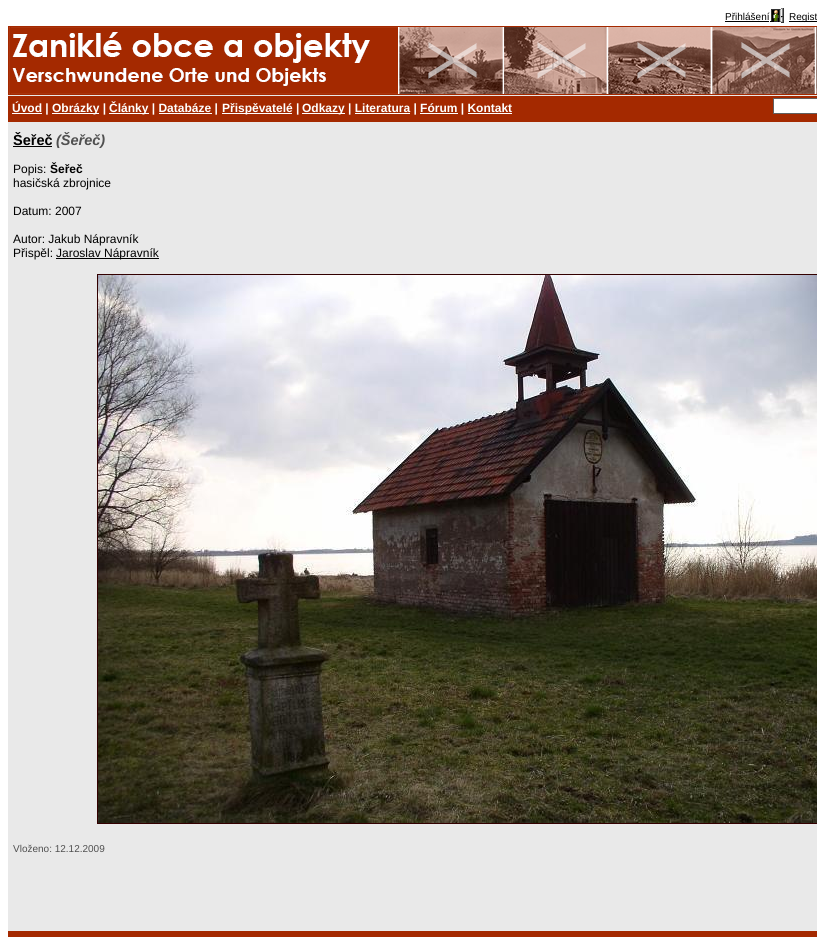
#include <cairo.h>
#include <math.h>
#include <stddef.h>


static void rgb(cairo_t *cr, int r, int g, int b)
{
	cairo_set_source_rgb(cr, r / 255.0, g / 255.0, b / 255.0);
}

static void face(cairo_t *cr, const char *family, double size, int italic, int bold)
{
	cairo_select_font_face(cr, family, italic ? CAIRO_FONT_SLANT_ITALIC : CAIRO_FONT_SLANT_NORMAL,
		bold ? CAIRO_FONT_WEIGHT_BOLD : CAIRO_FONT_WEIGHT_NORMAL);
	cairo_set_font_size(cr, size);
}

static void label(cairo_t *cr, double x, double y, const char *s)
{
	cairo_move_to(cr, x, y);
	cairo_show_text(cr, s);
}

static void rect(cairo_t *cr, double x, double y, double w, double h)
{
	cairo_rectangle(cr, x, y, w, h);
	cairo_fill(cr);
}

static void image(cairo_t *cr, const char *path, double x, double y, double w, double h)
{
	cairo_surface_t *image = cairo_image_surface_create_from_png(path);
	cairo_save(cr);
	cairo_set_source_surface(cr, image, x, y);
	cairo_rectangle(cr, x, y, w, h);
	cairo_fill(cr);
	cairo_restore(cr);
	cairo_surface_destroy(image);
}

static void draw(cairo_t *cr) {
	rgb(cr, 255, 255, 255);
	cairo_paint(cr);
	rgb(cr, 233, 233, 233);
	rect(cr, 8, 95, 809, 836);
	face(cr, "Liberation Sans", 10, 0, 0);
	rgb(cr, 0, 0, 0);
	label(cr, 725, 20, "Přihlášení");
	rect(cr, 725, 21, 44, 1);
	image(cr, "image0.png", 770, 8, 14, 15);
	rect(cr, 789, 21, 28, 1);
	label(cr, 789, 20, "Regist");
	image(cr, "image1.png", 9, 27, 808, 67);
	cairo_rectangle(cr, 8.5, 26.5, 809, 68);
	rgb(cr, 164, 41, 0);
	cairo_set_line_width(cr, 1);
	cairo_stroke(cr);
	rect(cr, 8, 96, 809, 26);
	rgb(cr, 255, 255, 255);
	rect(cr, 12, 113, 30, 1);
	face(cr, "Liberation Sans", 12, 0, 1);
	label(cr, 12, 112, "Úvod |");
	rect(cr, 52, 113, 47, 1);
	label(cr, 52, 112, "Obrázky |");
	rect(cr, 109, 113, 40, 1);
	label(cr, 109, 112, "Články | Databáze |");
	rect(cr, 222, 113, 70, 1);
	label(cr, 222, 112, "Přispěvatelé |");
	rect(cr, 302, 113, 43, 1);
	label(cr, 302, 112, "Odkazy | Literatura | Fórum | Kontakt");
	rect(cr, 159, 113, 53, 1);
	rect(cr, 355, 113, 55, 1);
	rect(cr, 420, 113, 38, 1);
	rect(cr, 468, 113, 44, 1);
	cairo_rectangle(cr, 773.5, 98.5, 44, 15);
	cairo_fill_preserve(cr);
	rgb(cr, 96, 96, 96);
	cairo_stroke(cr);
	face(cr, "Liberation Sans", 14.5, 0, 1);
	rgb(cr, 0, 0, 0);
	label(cr, 13, 145, "Šeřeč");
	rect(cr, 13, 146, 39, 1);
	face(cr, "Liberation Sans", 14.5, 1, 1);
	rgb(cr, 80, 80, 80);
	label(cr, 56, 145, "(Šeřeč)");
	face(cr, "Liberation Sans", 12, 0, 0);
	rgb(cr, 0, 0, 0);
	label(cr, 13, 173, "Popis:");
	face(cr, "Liberation Sans", 12, 0, 1);
	label(cr, 50, 173, "Šeřeč");
	face(cr, "Liberation Sans", 12, 0, 0);
	label(cr, 13, 187, "hasičská zbrojnice");
	label(cr, 13, 215, "Datum: 2007");
	label(cr, 13, 243, "Autor: Jakub Nápravník");
	label(cr, 13, 257, "Přispěl:");
	rect(cr, 56, 258, 103, 1);
	label(cr, 56, 257, "Jaroslav Nápravník");
	cairo_rectangle(cr, 97.5, 274.5, 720, 549);
	rgb(cr, 51, 0, 0);
	cairo_stroke(cr);
	image(cr, "image2.png", 98, 275, 719, 548);
	face(cr, "Liberation Sans", 10, 0, 0);
	rgb(cr, 80, 80, 80);
	label(cr, 13, 852, "Vloženo: 12.12.2009");
	rgb(cr, 164, 41, 0);
	rect(cr, 8, 931, 809, 6);
}

int main(void) {
	cairo_surface_t *surface = cairo_image_surface_create(CAIRO_FORMAT_RGB24, 817, 937);
	cairo_t *cr = cairo_create(surface);
	cairo_font_options_t *options = cairo_font_options_create();
	cairo_font_options_set_hint_metrics(options, CAIRO_HINT_METRICS_OFF);
	cairo_font_options_set_hint_style(options, CAIRO_HINT_STYLE_NONE);
	cairo_set_font_options(cr, options);
	cairo_set_miter_limit(cr, 4);
	draw(cr);
	cairo_surface_write_to_png(surface, "render.png");
	cairo_font_options_destroy(options);
	cairo_destroy(cr);
	cairo_surface_destroy(surface);
	return 0;
}
